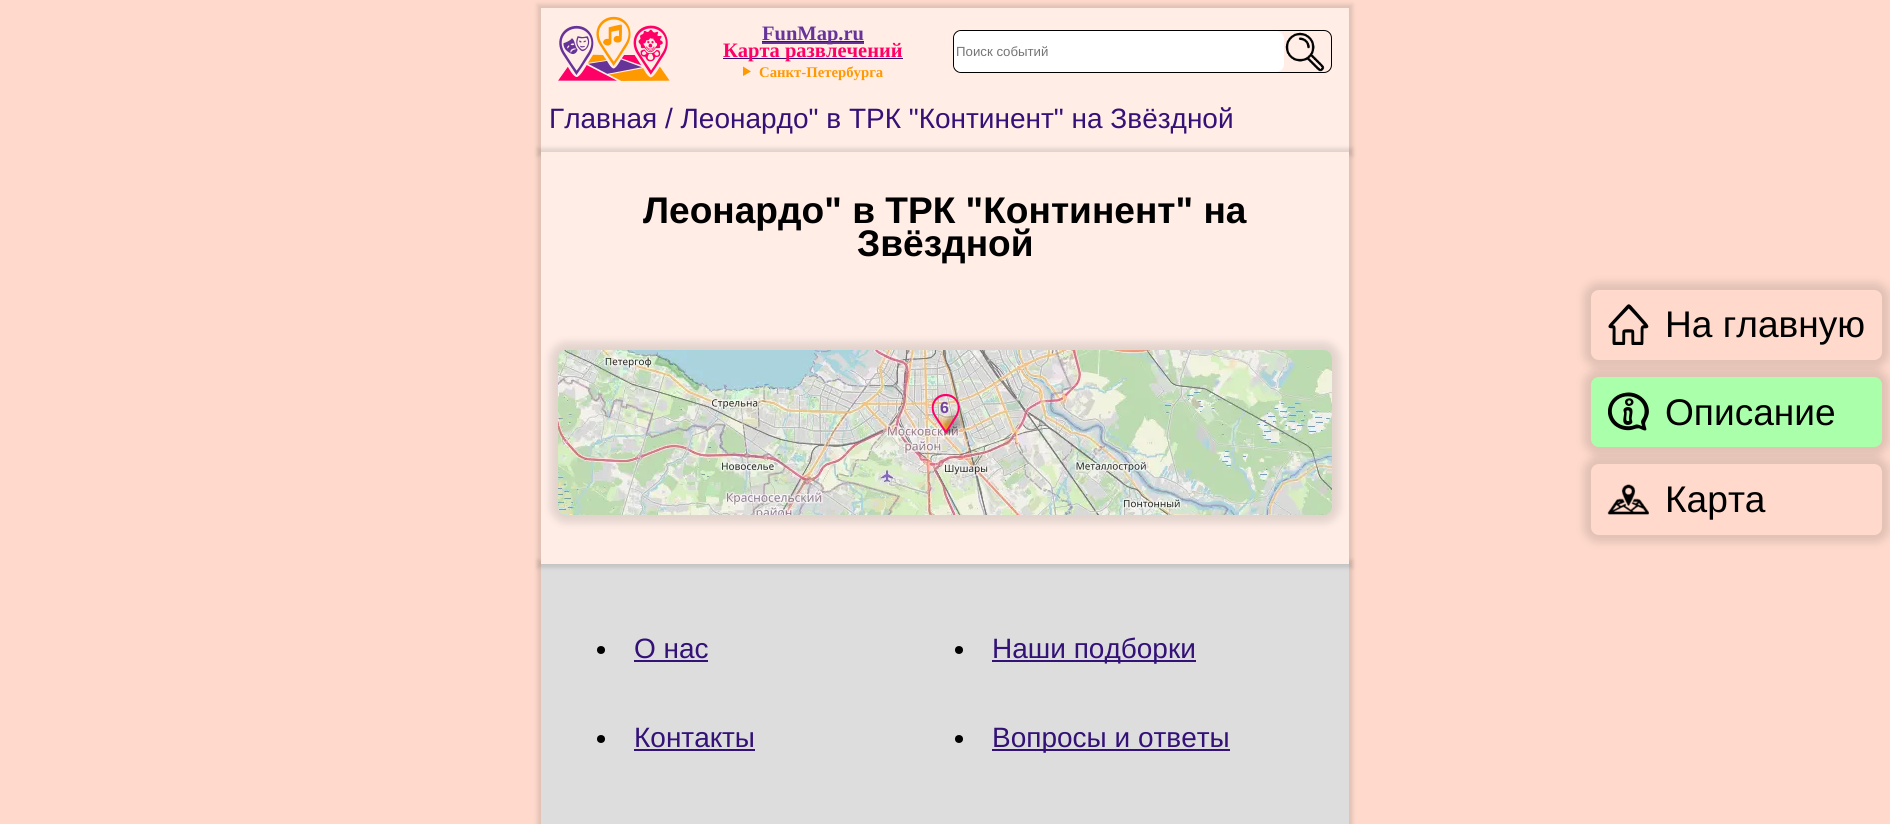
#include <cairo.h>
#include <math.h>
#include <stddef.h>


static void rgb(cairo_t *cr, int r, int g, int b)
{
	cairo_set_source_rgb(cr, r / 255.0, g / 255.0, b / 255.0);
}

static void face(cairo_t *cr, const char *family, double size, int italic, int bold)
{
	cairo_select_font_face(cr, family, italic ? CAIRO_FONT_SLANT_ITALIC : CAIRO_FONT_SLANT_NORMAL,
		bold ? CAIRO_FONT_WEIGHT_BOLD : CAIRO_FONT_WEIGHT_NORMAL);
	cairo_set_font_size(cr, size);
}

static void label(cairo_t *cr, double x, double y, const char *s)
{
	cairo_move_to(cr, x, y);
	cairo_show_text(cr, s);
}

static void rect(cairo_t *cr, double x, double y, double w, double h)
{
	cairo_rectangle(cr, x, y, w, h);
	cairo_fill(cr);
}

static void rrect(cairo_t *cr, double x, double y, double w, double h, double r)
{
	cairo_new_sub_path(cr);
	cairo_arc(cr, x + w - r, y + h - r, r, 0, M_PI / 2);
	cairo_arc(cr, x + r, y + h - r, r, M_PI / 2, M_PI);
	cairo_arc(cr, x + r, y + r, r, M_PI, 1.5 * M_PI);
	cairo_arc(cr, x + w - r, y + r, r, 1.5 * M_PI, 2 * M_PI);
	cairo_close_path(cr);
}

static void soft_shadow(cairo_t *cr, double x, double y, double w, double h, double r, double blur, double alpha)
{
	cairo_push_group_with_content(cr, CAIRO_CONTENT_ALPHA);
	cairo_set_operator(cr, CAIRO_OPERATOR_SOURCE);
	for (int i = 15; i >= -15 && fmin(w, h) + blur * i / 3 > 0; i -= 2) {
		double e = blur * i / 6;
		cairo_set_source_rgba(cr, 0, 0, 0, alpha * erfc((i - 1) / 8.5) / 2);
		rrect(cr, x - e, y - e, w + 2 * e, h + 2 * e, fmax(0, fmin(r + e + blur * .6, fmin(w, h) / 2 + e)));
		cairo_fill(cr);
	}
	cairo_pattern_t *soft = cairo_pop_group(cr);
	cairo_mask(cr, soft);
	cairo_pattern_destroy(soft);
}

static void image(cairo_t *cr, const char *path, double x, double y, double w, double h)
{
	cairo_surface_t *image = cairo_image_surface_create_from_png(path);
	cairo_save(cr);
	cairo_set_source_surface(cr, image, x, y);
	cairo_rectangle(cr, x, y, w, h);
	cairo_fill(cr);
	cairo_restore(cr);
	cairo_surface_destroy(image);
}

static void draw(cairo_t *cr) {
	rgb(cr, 255, 218, 204);
	cairo_paint(cr);
	rgb(cr, 34, 34, 34);
	soft_shadow(cr, 537, 4, 816, 152, 0, 2, 0.13);
	rgb(cr, 255, 237, 230);
	rect(cr, 541, 8, 808, 144);
	image(cr, "image0.png", 558, 16, 112, 65);
	rgb(cr, 102, 51, 153);
	rect(cr, 762, 42, 102, 2);
	rgb(cr, 51, 17, 119);
	rect(cr, 762, 41, 102, 1);
	face(cr, "Liberation Serif", 20.5, 0, 1);
	rgb(cr, 102, 51, 153);
	label(cr, 762, 40, "FunMap.ru");
	rgb(cr, 51, 17, 119);
	rect(cr, 723, 58, 180, 1);
	rgb(cr, 255, 0, 102);
	label(cr, 723, 57, "Карта развлечений");
	rgb(cr, 255, 153, 0);
	cairo_new_path(cr);
	cairo_move_to(cr, 743, 66.5);
	cairo_line_to(cr, 751, 71.5);
	cairo_line_to(cr, 743, 76);
	cairo_close_path(cr);
	cairo_fill(cr);
	face(cr, "Liberation Serif", 14.75, 0, 1);
	label(cr, 759, 77, "Санкт-Петербурга");
	rrect(cr, 953.5, 30.5, 378, 42, 7.5);
	rgb(cr, 0, 0, 0);
	cairo_set_line_width(cr, 1);
	cairo_stroke(cr);
	rgb(cr, 255, 255, 255);
	rrect(cr, 954, 31, 330, 41, 8);
	cairo_fill(cr);
	face(cr, "Liberation Sans", 13.25, 0, 0);
	rgb(cr, 117, 117, 117);
	label(cr, 956, 56, "Поиск событий");
	image(cr, "image1.png", 1285, 32, 40, 40);
	face(cr, "Liberation Sans", 28, 0, 0);
	rgb(cr, 51, 17, 119);
	label(cr, 549, 128, "Главная / Леонардо\" в ТРК \"Континент\" на Звёздной");
	rgb(cr, 34, 34, 34);
	soft_shadow(cr, 537, 560, 816, 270, 0, 2, 0.13);
	rgb(cr, 221, 221, 221);
	rect(cr, 541, 564, 808, 260);
	rgb(cr, 34, 34, 34);
	soft_shadow(cr, 537, 148, 816, 420, 0, 2, 0.13);
	rgb(cr, 255, 237, 230);
	rect(cr, 541, 152, 808, 379);
	face(cr, "Liberation Sans", 37.1, 0, 1);
	rgb(cr, 0, 0, 0);
	label(cr, 643, 223, "Леонардо\" в ТРК \"Континент\" на");
	label(cr, 857, 256, "Звёздной");
	rgb(cr, 34, 34, 34);
	soft_shadow(cr, 550, 342, 790, 181, 16, 4, 0.13);
	rgb(cr, 221, 221, 221);
	rrect(cr, 558, 350, 774, 165, 8);
	cairo_fill(cr);
	image(cr, "image2.png", 558, 350, 49, 165);
	image(cr, "image3.png", 607, 350, 256, 165);
	image(cr, "image4.png", 863, 350, 256, 165);
	image(cr, "image5.png", 1119, 350, 213, 165);
	image(cr, "image7.png", 943, 411, 25, 24);
	image(cr, "image6.png", 931, 393, 29, 41);
	face(cr, "Liberation Sans", 16, 0, 1);
	rgb(cr, 115, 68, 159);
	label(cr, 940, 413, "6");
	rgb(cr, 255, 237, 230);
	rect(cr, 541, 531, 808, 33);
	rgb(cr, 34, 34, 34);
	soft_shadow(cr, 1583, 282, 307, 86, 15, 4, 0.13);
	rgb(cr, 255, 218, 204);
	rrect(cr, 1591, 290, 291, 70, 8);
	cairo_fill(cr);
	image(cr, "image8.png", 1608, 304, 41, 41);
	face(cr, "Liberation Sans", 37.1, 0, 0);
	rgb(cr, 0, 0, 0);
	label(cr, 1665, 337, "На главную");
	rgb(cr, 34, 34, 34);
	soft_shadow(cr, 1583, 369, 307, 86, 15, 4, 0.13);
	rgb(cr, 170, 255, 170);
	rrect(cr, 1591, 377, 291, 70, 8);
	cairo_fill(cr);
	image(cr, "image9.png", 1608, 392, 41, 39);
	rgb(cr, 0, 0, 0);
	label(cr, 1665, 425, "Описание");
	rgb(cr, 34, 34, 34);
	soft_shadow(cr, 1583, 456, 307, 87, 15, 4, 0.13);
	rgb(cr, 255, 218, 204);
	rrect(cr, 1591, 464, 291, 71, 8);
	cairo_fill(cr);
	image(cr, "image10.png", 1607, 484, 42, 31);
	rgb(cr, 0, 0, 0);
	label(cr, 1665, 512, "Карта");
	cairo_new_path(cr);
	cairo_arc(cr, 601, 650, 4, 0, 2 * M_PI);
	cairo_fill(cr);
	face(cr, "Liberation Sans", 28, 0, 0);
	rgb(cr, 51, 17, 119);
	label(cr, 634, 658, "О нас");
	rect(cr, 634, 660, 74, 2);
	rgb(cr, 0, 0, 0);
	cairo_new_path(cr);
	cairo_arc(cr, 601, 739, 4, 0, 2 * M_PI);
	cairo_fill(cr);
	rgb(cr, 51, 17, 119);
	label(cr, 634, 747, "Контакты");
	rect(cr, 634, 749, 121, 2);
	rgb(cr, 0, 0, 0);
	cairo_new_path(cr);
	cairo_arc(cr, 959, 650, 4, 0, 2 * M_PI);
	cairo_fill(cr);
	rgb(cr, 51, 17, 119);
	rect(cr, 992, 660, 204, 2);
	label(cr, 992, 658, "Наши подборки");
	rgb(cr, 0, 0, 0);
	cairo_new_path(cr);
	cairo_arc(cr, 959, 739, 4, 0, 2 * M_PI);
	cairo_fill(cr);
	rgb(cr, 51, 17, 119);
	rect(cr, 992, 749, 238, 2);
	label(cr, 992, 747, "Вопросы и ответы");
}

int main(void) {
	cairo_surface_t *surface = cairo_image_surface_create(CAIRO_FORMAT_RGB24, 1890, 824);
	cairo_t *cr = cairo_create(surface);
	cairo_font_options_t *options = cairo_font_options_create();
	cairo_font_options_set_hint_metrics(options, CAIRO_HINT_METRICS_OFF);
	cairo_font_options_set_hint_style(options, CAIRO_HINT_STYLE_NONE);
	cairo_set_font_options(cr, options);
	cairo_set_miter_limit(cr, 4);
	draw(cr);
	cairo_surface_write_to_png(surface, "render.png");
	cairo_font_options_destroy(options);
	cairo_destroy(cr);
	cairo_surface_destroy(surface);
	return 0;
}
